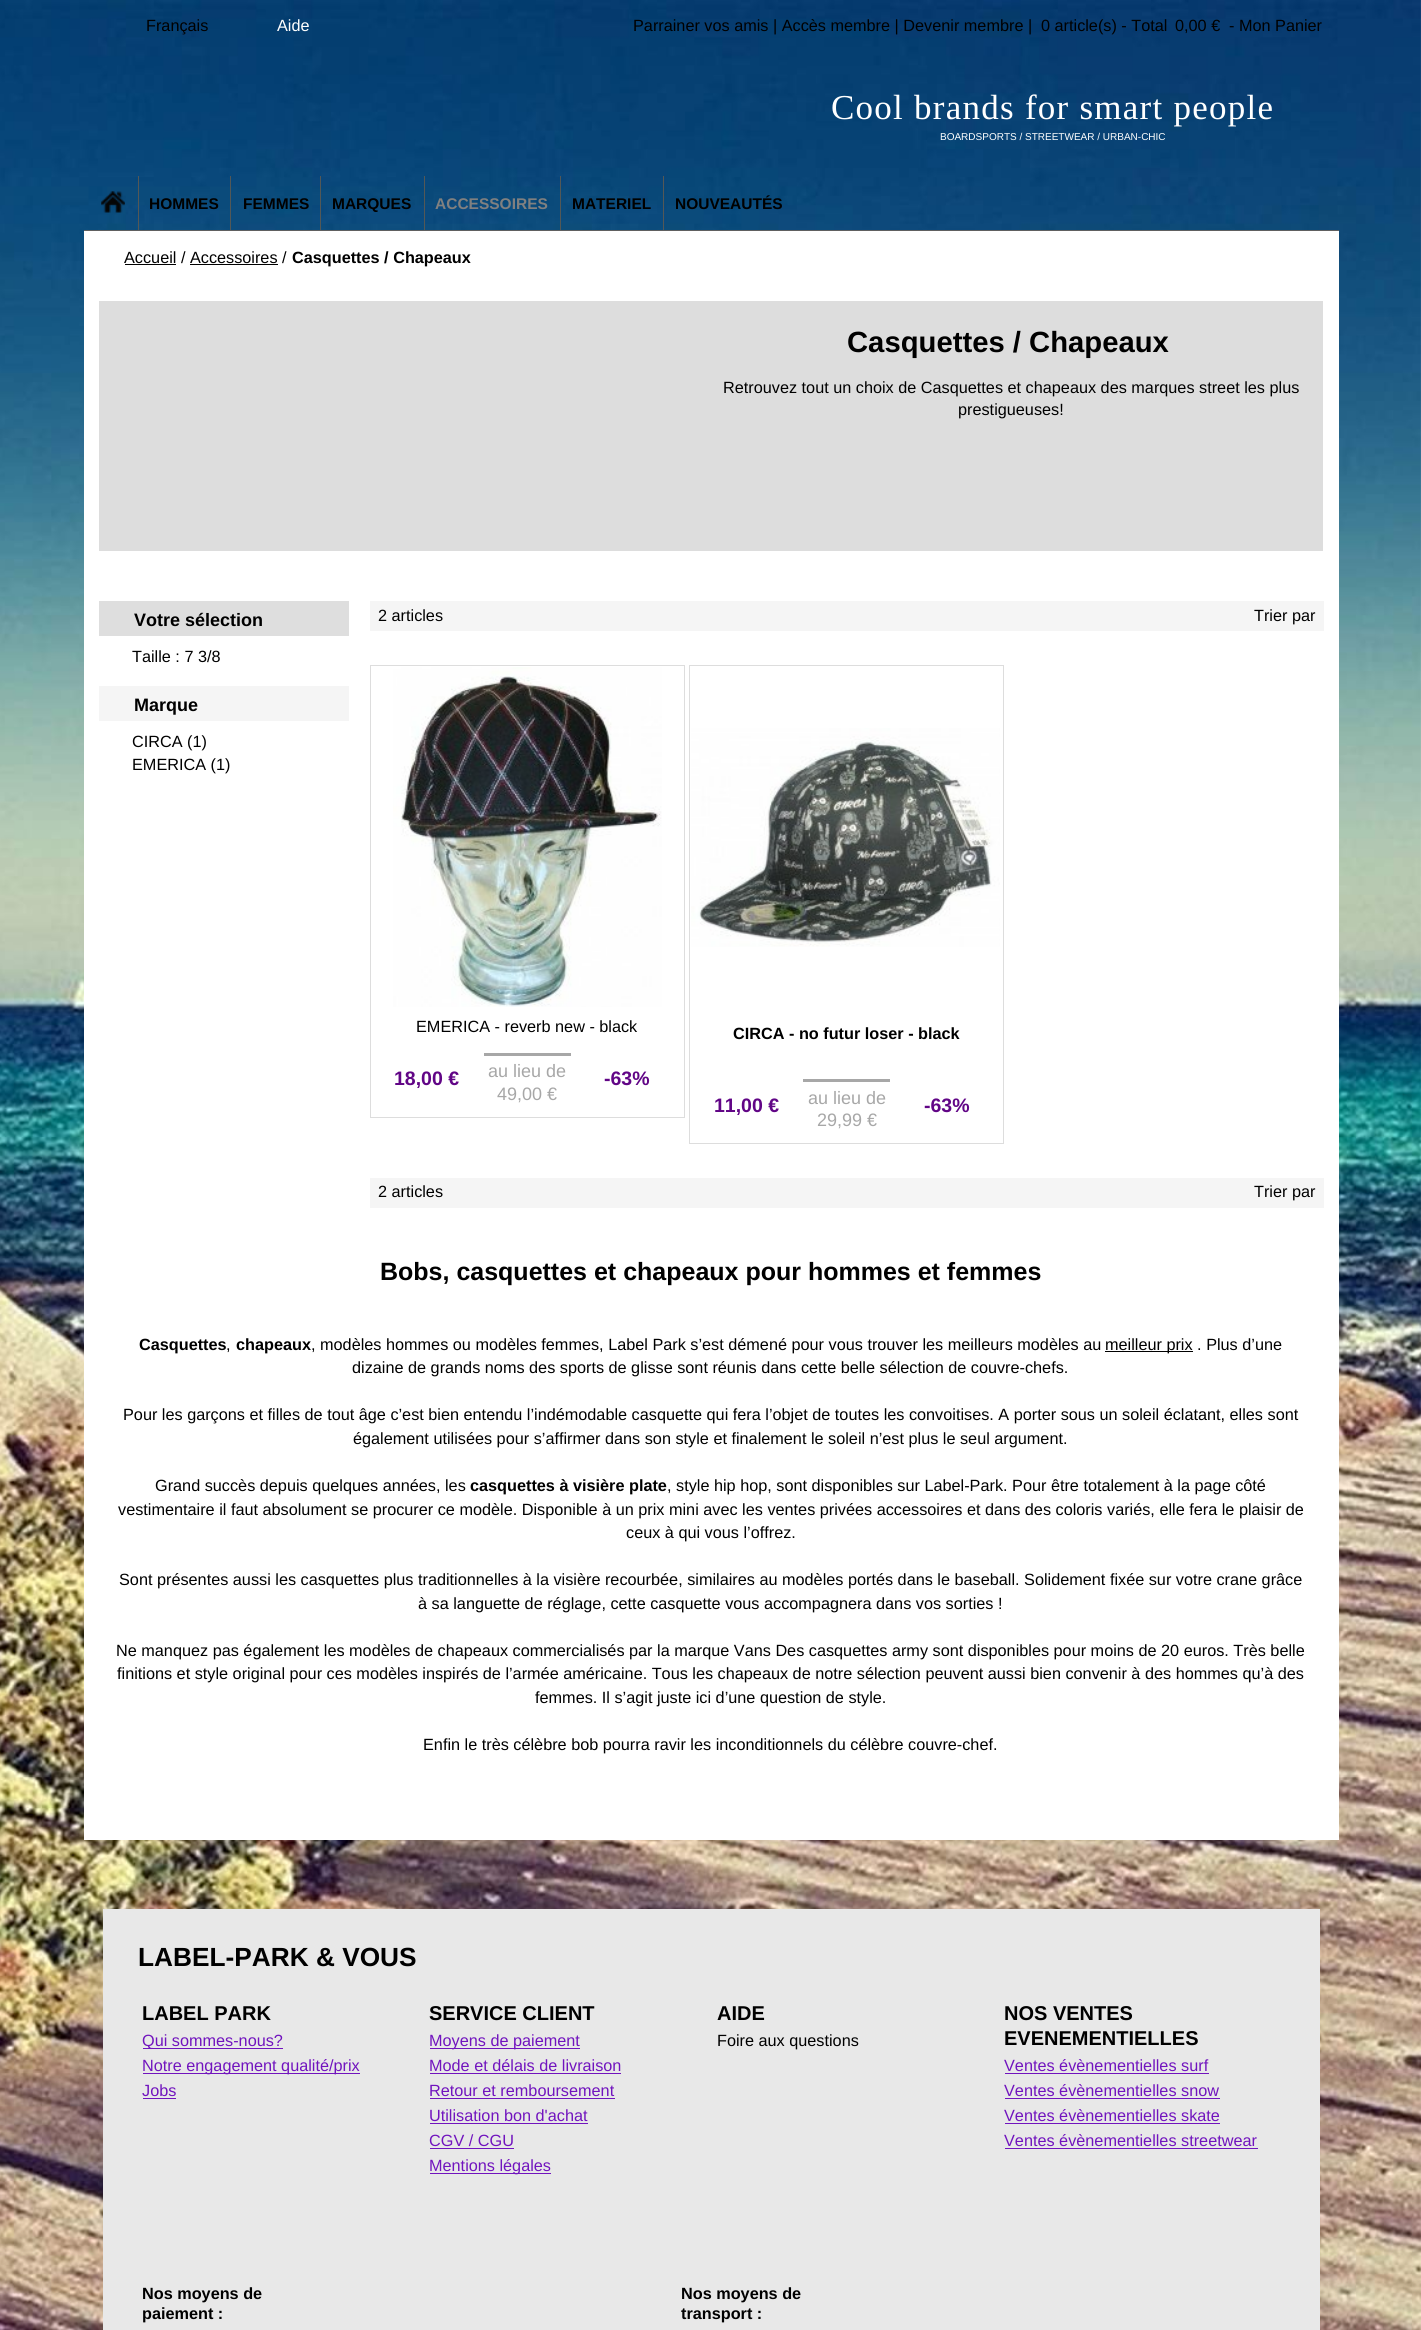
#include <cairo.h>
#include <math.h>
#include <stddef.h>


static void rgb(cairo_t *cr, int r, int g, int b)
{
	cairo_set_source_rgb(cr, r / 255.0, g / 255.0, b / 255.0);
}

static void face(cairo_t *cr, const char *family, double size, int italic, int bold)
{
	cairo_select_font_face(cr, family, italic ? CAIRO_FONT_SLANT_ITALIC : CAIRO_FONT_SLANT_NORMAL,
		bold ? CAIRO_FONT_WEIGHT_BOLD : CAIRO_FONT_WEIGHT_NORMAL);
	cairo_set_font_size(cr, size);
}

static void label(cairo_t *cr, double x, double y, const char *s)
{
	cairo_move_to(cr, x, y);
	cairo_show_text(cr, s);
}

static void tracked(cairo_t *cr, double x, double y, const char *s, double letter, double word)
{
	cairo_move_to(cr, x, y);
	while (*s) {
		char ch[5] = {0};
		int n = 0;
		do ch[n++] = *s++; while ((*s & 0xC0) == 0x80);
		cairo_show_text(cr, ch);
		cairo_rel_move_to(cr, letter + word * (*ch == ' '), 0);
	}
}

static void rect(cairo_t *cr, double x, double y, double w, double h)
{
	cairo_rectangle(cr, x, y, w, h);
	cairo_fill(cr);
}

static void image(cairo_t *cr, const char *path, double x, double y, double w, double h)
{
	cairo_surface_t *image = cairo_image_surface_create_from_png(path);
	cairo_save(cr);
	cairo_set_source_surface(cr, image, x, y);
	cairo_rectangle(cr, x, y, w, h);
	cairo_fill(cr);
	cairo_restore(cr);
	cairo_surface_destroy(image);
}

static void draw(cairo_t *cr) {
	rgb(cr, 255, 255, 255);
	cairo_paint(cr);
	image(cr, "image0.png", 0, 0, 1421, 2330);
	face(cr, "Liberation Sans", 16.25, 0, 0);
	rgb(cr, 0, 0, 0);
	label(cr, 146, 31, "Français");
	rgb(cr, 255, 255, 255);
	label(cr, 277, 31, "Aide");
	rgb(cr, 0, 0, 0);
	label(cr, 633, 31, "Parrainer vos amis | Accès membre | Devenir membre |");
	label(cr, 1041, 31, "0 article(s) - Total");
	label(cr, 1175, 31, "0,00 €");
	label(cr, 1229, 31, "- Mon Panier");
	face(cr, "Liberation Serif", 35, 0, 0);
	rgb(cr, 255, 255, 255);
	tracked(cr, 831, 119, "Cool brands for smart people", 1.25, 0);
	face(cr, "Liberation Sans", 10, 0, 0);
	label(cr, 940, 140, "BOARDSPORTS / STREETWEAR / URBAN-CHIC");
	rgb(cr, 96, 96, 96);
	rect(cr, 84, 230, 1255, 1);
	image(cr, "image1.png", 101, 191, 24, 22);
	rgb(cr, 84, 88, 86);
	rect(cr, 138, 176, 1, 54);
	face(cr, "Liberation Sans", 15.5, 0, 1);
	rgb(cr, 0, 0, 0);
	label(cr, 149, 209, "HOMMES");
	rgb(cr, 84, 88, 86);
	rect(cr, 230, 176, 1, 54);
	rgb(cr, 0, 0, 0);
	label(cr, 243, 209, "FEMMES");
	rgb(cr, 84, 88, 86);
	rect(cr, 320, 176, 1, 54);
	rgb(cr, 0, 0, 0);
	label(cr, 332, 209, "MARQUES");
	rgb(cr, 84, 88, 86);
	rect(cr, 424, 176, 1, 54);
	rgb(cr, 128, 128, 128);
	label(cr, 435, 209, "ACCESSOIRES");
	rgb(cr, 84, 88, 86);
	rect(cr, 560, 176, 1, 54);
	rgb(cr, 0, 0, 0);
	label(cr, 572, 209, "MATERIEL");
	rgb(cr, 84, 88, 86);
	rect(cr, 663, 176, 1, 54);
	rgb(cr, 0, 0, 0);
	label(cr, 675, 209, "NOUVEAUTÉS");
	rgb(cr, 255, 255, 255);
	rect(cr, 84, 231, 1255, 1609);
	face(cr, "Liberation Sans", 16.25, 0, 0);
	rgb(cr, 0, 0, 0);
	label(cr, 124, 263, "Accueil / Accessoires /");
	rect(cr, 125, 264, 51, 1);
	face(cr, "Liberation Sans", 16.25, 0, 1);
	label(cr, 292, 263, "Casquettes / Chapeaux");
	rect(cr, 190, 264, 88, 1);
	rgb(cr, 221, 221, 221);
	rect(cr, 99, 301, 1224, 250);
	face(cr, "Liberation Sans", 29.25, 0, 1);
	rgb(cr, 0, 0, 0);
	label(cr, 847, 352, "Casquettes / Chapeaux");
	face(cr, "Liberation Sans", 16.25, 0, 0);
	label(cr, 723, 393, "Retrouvez tout un choix de Casquettes et chapeaux des marques street les plus");
	label(cr, 958, 415, "prestigueuses!");
	rgb(cr, 222, 222, 222);
	rect(cr, 99, 601, 250, 35);
	face(cr, "Liberation Sans", 18, 0, 1);
	rgb(cr, 0, 0, 0);
	label(cr, 134, 626, "Votre sélection");
	face(cr, "Liberation Sans", 16.25, 0, 0);
	label(cr, 132, 662, "Taille : 7 3/8");
	rgb(cr, 245, 245, 245);
	rect(cr, 99, 686, 250, 35);
	face(cr, "Liberation Sans", 18, 0, 1);
	rgb(cr, 0, 0, 0);
	label(cr, 134, 711, "Marque");
	face(cr, "Liberation Sans", 16.25, 0, 0);
	label(cr, 132, 747, "CIRCA (1)");
	label(cr, 132, 770, "EMERICA (1)");
	rgb(cr, 245, 245, 245);
	rect(cr, 370, 601, 954, 30);
	rgb(cr, 0, 0, 0);
	label(cr, 378, 621, "2 articles");
	label(cr, 1254, 621, "Trier par");
	cairo_rectangle(cr, 370.5, 665.5, 314, 452);
	rgb(cr, 221, 221, 221);
	cairo_set_line_width(cr, 1);
	cairo_stroke(cr);
	image(cr, "image2.png", 393, 667, 269, 340);
	rgb(cr, 0, 0, 0);
	label(cr, 416, 1032, "EMERICA - reverb new - black");
	face(cr, "Liberation Sans", 19.5, 0, 1);
	rgb(cr, 97, 5, 134);
	label(cr, 394, 1085, "18,00 €");
	rgb(cr, 167, 167, 167);
	rect(cr, 484, 1053, 87, 3);
	face(cr, "Liberation Sans", 18, 0, 0);
	label(cr, 488, 1077, "au lieu de");
	label(cr, 497, 1100, "49,00 €");
	face(cr, "Liberation Sans", 19.5, 0, 1);
	rgb(cr, 97, 5, 134);
	label(cr, 604, 1085, "-63%");
	cairo_rectangle(cr, 689.5, 665.5, 314, 478);
	rgb(cr, 221, 221, 221);
	cairo_stroke(cr);
	image(cr, "image3.png", 691, 728, 309, 219);
	face(cr, "Liberation Sans", 16.25, 0, 1);
	rgb(cr, 0, 0, 0);
	label(cr, 733, 1039, "CIRCA - no futur loser - black");
	face(cr, "Liberation Sans", 19.5, 0, 1);
	rgb(cr, 97, 5, 134);
	label(cr, 714, 1112, "11,00 €");
	rgb(cr, 167, 167, 167);
	rect(cr, 803, 1079, 87, 3);
	face(cr, "Liberation Sans", 18, 0, 0);
	label(cr, 808, 1104, "au lieu de");
	label(cr, 817, 1126, "29,99 €");
	face(cr, "Liberation Sans", 19.5, 0, 1);
	rgb(cr, 97, 5, 134);
	label(cr, 924, 1112, "-63%");
	rgb(cr, 245, 245, 245);
	rect(cr, 370, 1178, 954, 30);
	face(cr, "Liberation Sans", 16.25, 0, 0);
	rgb(cr, 0, 0, 0);
	label(cr, 378, 1197, "2 articles");
	label(cr, 1254, 1197, "Trier par");
	face(cr, "Liberation Sans", 25, 0, 1);
	label(cr, 380, 1280, "Bobs, casquettes et chapeaux pour hommes et femmes");
	face(cr, "Liberation Sans", 16.25, 0, 1);
	label(cr, 139, 1350, "Casquettes");
	face(cr, "Liberation Sans", 16.25, 0, 0);
	label(cr, 226, 1350, ",");
	face(cr, "Liberation Sans", 16.25, 0, 1);
	label(cr, 236, 1350, "chapeaux");
	face(cr, "Liberation Sans", 16.25, 0, 0);
	label(cr, 311, 1350, ", modèles hommes ou modèles femmes, Label Park s’est démené pour vous trouver les meilleurs modèles au");
	rect(cr, 1105, 1351, 88, 1);
	label(cr, 1105, 1350, "meilleur prix . Plus d’une");
	label(cr, 352, 1373, "dizaine de grands noms des sports de glisse sont réunis dans cette belle sélection de couvre-chefs.");
	label(cr, 123, 1420, "Pour les garçons et filles de tout âge c’est bien entendu l’indémodable casquette qui fera l’objet de toutes les convoitises. A porter sous un soleil éclatant, elles sont");
	label(cr, 353, 1444, "également utilisées pour s’affirmer dans son style et finalement le soleil n’est plus le seul argument.");
	label(cr, 155, 1491, "Grand succès depuis quelques années, les");
	face(cr, "Liberation Sans", 16.25, 0, 1);
	label(cr, 470, 1491, "casquettes à visière plate");
	face(cr, "Liberation Sans", 16.25, 0, 0);
	label(cr, 667, 1491, ", style hip hop, sont disponibles sur Label-Park. Pour être totalement à la page côté");
	label(cr, 118, 1515, "vestimentaire il faut absolument se procurer ce modèle. Disponible à un prix mini avec les ventes privées accessoires et dans des coloris variés, elle fera le plaisir de");
	label(cr, 626, 1538, "ceux à qui vous l’offrez.");
	label(cr, 119, 1585, "Sont présentes aussi les casquettes plus traditionnelles à la visière recourbée, similaires au modèles portés dans le baseball. Solidement fixée sur votre crane grâce");
	label(cr, 418, 1609, "à sa languette de réglage, cette casquette vous accompagnera dans vos sorties !");
	label(cr, 116, 1656, "Ne manquez pas également les modèles de chapeaux commercialisés par la marque Vans Des casquettes army sont disponibles pour moins de 20 euros. Très belle");
	label(cr, 117, 1679, "finitions et style original pour ces modèles inspirés de l’armée américaine. Tous les chapeaux de notre sélection peuvent aussi bien convenir à des hommes qu’à des");
	label(cr, 535, 1703, "femmes. Il s’agit juste ici d’une question de style.");
	label(cr, 423, 1750, "Enfin le très célèbre bob pourra ravir les inconditionnels du célèbre couvre-chef.");
	rgb(cr, 232, 232, 232);
	rect(cr, 103, 1909, 1217, 421);
	face(cr, "Liberation Sans", 26.25, 0, 1);
	rgb(cr, 0, 0, 0);
	label(cr, 138, 1966, "LABEL-PARK & VOUS");
	face(cr, "Liberation Sans", 20, 0, 1);
	label(cr, 142, 2020, "LABEL PARK");
	rgb(cr, 113, 20, 190);
	rect(cr, 143, 2048, 140, 1);
	face(cr, "Liberation Sans", 16.25, 0, 0);
	label(cr, 142, 2046, "Qui sommes-nous?");
	rect(cr, 143, 2073, 217, 1);
	label(cr, 142, 2071, "Notre engagement qualité/prix");
	label(cr, 142, 2096, "Jobs");
	rect(cr, 143, 2098, 33, 1);
	face(cr, "Liberation Sans", 20, 0, 1);
	rgb(cr, 0, 0, 0);
	label(cr, 429, 2020, "SERVICE CLIENT");
	rgb(cr, 113, 20, 190);
	rect(cr, 430, 2048, 150, 1);
	face(cr, "Liberation Sans", 16.25, 0, 0);
	label(cr, 429, 2046, "Moyens de paiement");
	label(cr, 429, 2071, "Mode et délais de livraison");
	rect(cr, 430, 2073, 191, 1);
	label(cr, 429, 2096, "Retour et remboursement");
	rect(cr, 430, 2098, 185, 1);
	label(cr, 429, 2121, "Utilisation bon d'achat");
	rect(cr, 430, 2123, 158, 1);
	label(cr, 429, 2146, "CGV / CGU");
	rect(cr, 430, 2148, 84, 1);
	rect(cr, 430, 2173, 121, 1);
	label(cr, 429, 2171, "Mentions légales");
	face(cr, "Liberation Sans", 20, 0, 1);
	rgb(cr, 0, 0, 0);
	label(cr, 717, 2020, "AIDE");
	face(cr, "Liberation Sans", 16.25, 0, 0);
	label(cr, 717, 2046, "Foire aux questions");
	face(cr, "Liberation Sans", 20, 0, 1);
	label(cr, 1004, 2020, "NOS VENTES");
	label(cr, 1004, 2045, "EVENEMENTIELLES");
	face(cr, "Liberation Sans", 16.25, 0, 0);
	rgb(cr, 113, 20, 190);
	label(cr, 1004, 2071, "Ventes évènementielles surf");
	rect(cr, 1005, 2073, 204, 1);
	label(cr, 1004, 2096, "Ventes évènementielles snow");
	rect(cr, 1005, 2098, 215, 1);
	label(cr, 1004, 2121, "Ventes évènementielles skate");
	rect(cr, 1005, 2123, 215, 1);
	label(cr, 1004, 2146, "Ventes évènementielles streetwear");
	rect(cr, 1005, 2148, 253, 1);
	face(cr, "Liberation Sans", 16.25, 0, 1);
	rgb(cr, 0, 0, 0);
	label(cr, 142, 2299, "Nos moyens de");
	label(cr, 142, 2319, "paiement :");
	label(cr, 681, 2299, "Nos moyens de");
	label(cr, 681, 2319, "transport :");
}

int main(void) {
	cairo_surface_t *surface = cairo_image_surface_create(CAIRO_FORMAT_RGB24, 1421, 2330);
	cairo_t *cr = cairo_create(surface);
	cairo_font_options_t *options = cairo_font_options_create();
	cairo_font_options_set_hint_metrics(options, CAIRO_HINT_METRICS_OFF);
	cairo_font_options_set_hint_style(options, CAIRO_HINT_STYLE_NONE);
	cairo_set_font_options(cr, options);
	cairo_set_miter_limit(cr, 4);
	draw(cr);
	cairo_surface_write_to_png(surface, "render.png");
	cairo_font_options_destroy(options);
	cairo_destroy(cr);
	cairo_surface_destroy(surface);
	return 0;
}
